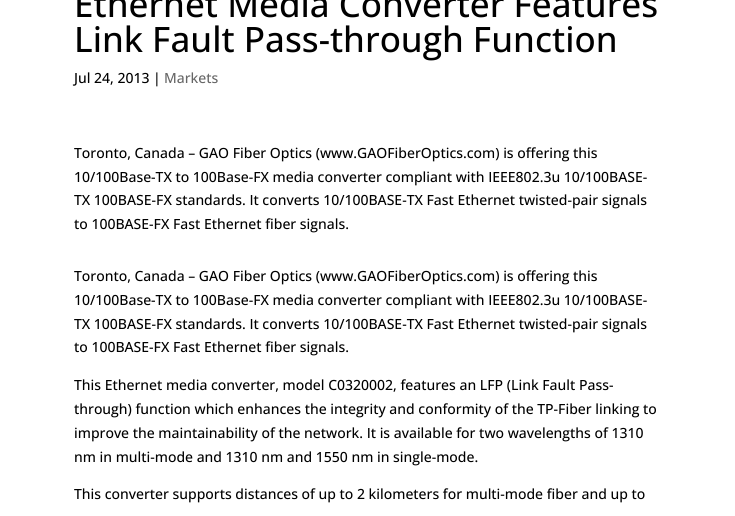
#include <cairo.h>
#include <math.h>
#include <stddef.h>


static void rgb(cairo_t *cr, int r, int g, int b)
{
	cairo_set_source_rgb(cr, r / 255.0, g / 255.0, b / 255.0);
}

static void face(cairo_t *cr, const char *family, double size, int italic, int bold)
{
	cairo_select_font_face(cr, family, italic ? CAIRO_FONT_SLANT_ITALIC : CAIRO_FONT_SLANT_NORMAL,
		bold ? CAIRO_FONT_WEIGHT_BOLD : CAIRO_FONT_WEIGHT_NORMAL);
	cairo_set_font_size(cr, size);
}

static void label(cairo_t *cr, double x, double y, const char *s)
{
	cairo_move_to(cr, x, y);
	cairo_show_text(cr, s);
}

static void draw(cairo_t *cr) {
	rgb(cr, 255, 255, 255);
	cairo_paint(cr);
	face(cr, "Open Sans Medium", 35, 0, 0);
	rgb(cr, 0, 0, 0);
	label(cr, 74, 17, "Ethernet Media Converter Features");
	label(cr, 74, 52, "Link Fault Pass-through Function");
	face(cr, "Open Sans Medium", 14, 0, 0);
	label(cr, 74, 83, "Jul 24, 2013 |");
	rgb(cr, 102, 102, 102);
	label(cr, 164, 83, "Markets");
	rgb(cr, 0, 0, 0);
	label(cr, 74, 158, "Toronto, Canada – GAO Fiber Optics (www.GAOFiberOptics.com) is offering this");
	label(cr, 74, 182, "10/100Base-TX to 100Base-FX media converter compliant with IEEE802.3u 10/100BASE-");
	label(cr, 74, 205, "TX 100BASE-FX standards. It converts 10/100BASE-TX Fast Ethernet twisted-pair signals");
	label(cr, 74, 229, "to 100BASE-FX Fast Ethernet fiber signals.");
	label(cr, 74, 281, "Toronto, Canada – GAO Fiber Optics (www.GAOFiberOptics.com) is offering this");
	label(cr, 74, 305, "10/100Base-TX to 100Base-FX media converter compliant with IEEE802.3u 10/100BASE-");
	label(cr, 74, 329, "TX 100BASE-FX standards. It converts 10/100BASE-TX Fast Ethernet twisted-pair signals");
	label(cr, 74, 352, "to 100BASE-FX Fast Ethernet fiber signals.");
	label(cr, 74, 390, "This Ethernet media converter, model C0320002, features an LFP (Link Fault Pass-");
	label(cr, 74, 414, "through) function which enhances the integrity and conformity of the TP-Fiber linking to");
	label(cr, 74, 438, "improve the maintainability of the network. It is available for two wavelengths of 1310");
	label(cr, 74, 462, "nm in multi-mode and 1310 nm and 1550 nm in single-mode.");
	label(cr, 74, 499, "This converter supports distances of up to 2 kilometers for multi-mode fiber and up to");
}

int main(void) {
	cairo_surface_t *surface = cairo_image_surface_create(CAIRO_FORMAT_RGB24, 735, 516);
	cairo_t *cr = cairo_create(surface);
	cairo_font_options_t *options = cairo_font_options_create();
	cairo_font_options_set_hint_metrics(options, CAIRO_HINT_METRICS_OFF);
	cairo_font_options_set_hint_style(options, CAIRO_HINT_STYLE_NONE);
	cairo_set_font_options(cr, options);
	cairo_set_miter_limit(cr, 4);
	draw(cr);
	cairo_surface_write_to_png(surface, "render.png");
	cairo_font_options_destroy(options);
	cairo_destroy(cr);
	cairo_surface_destroy(surface);
	return 0;
}
